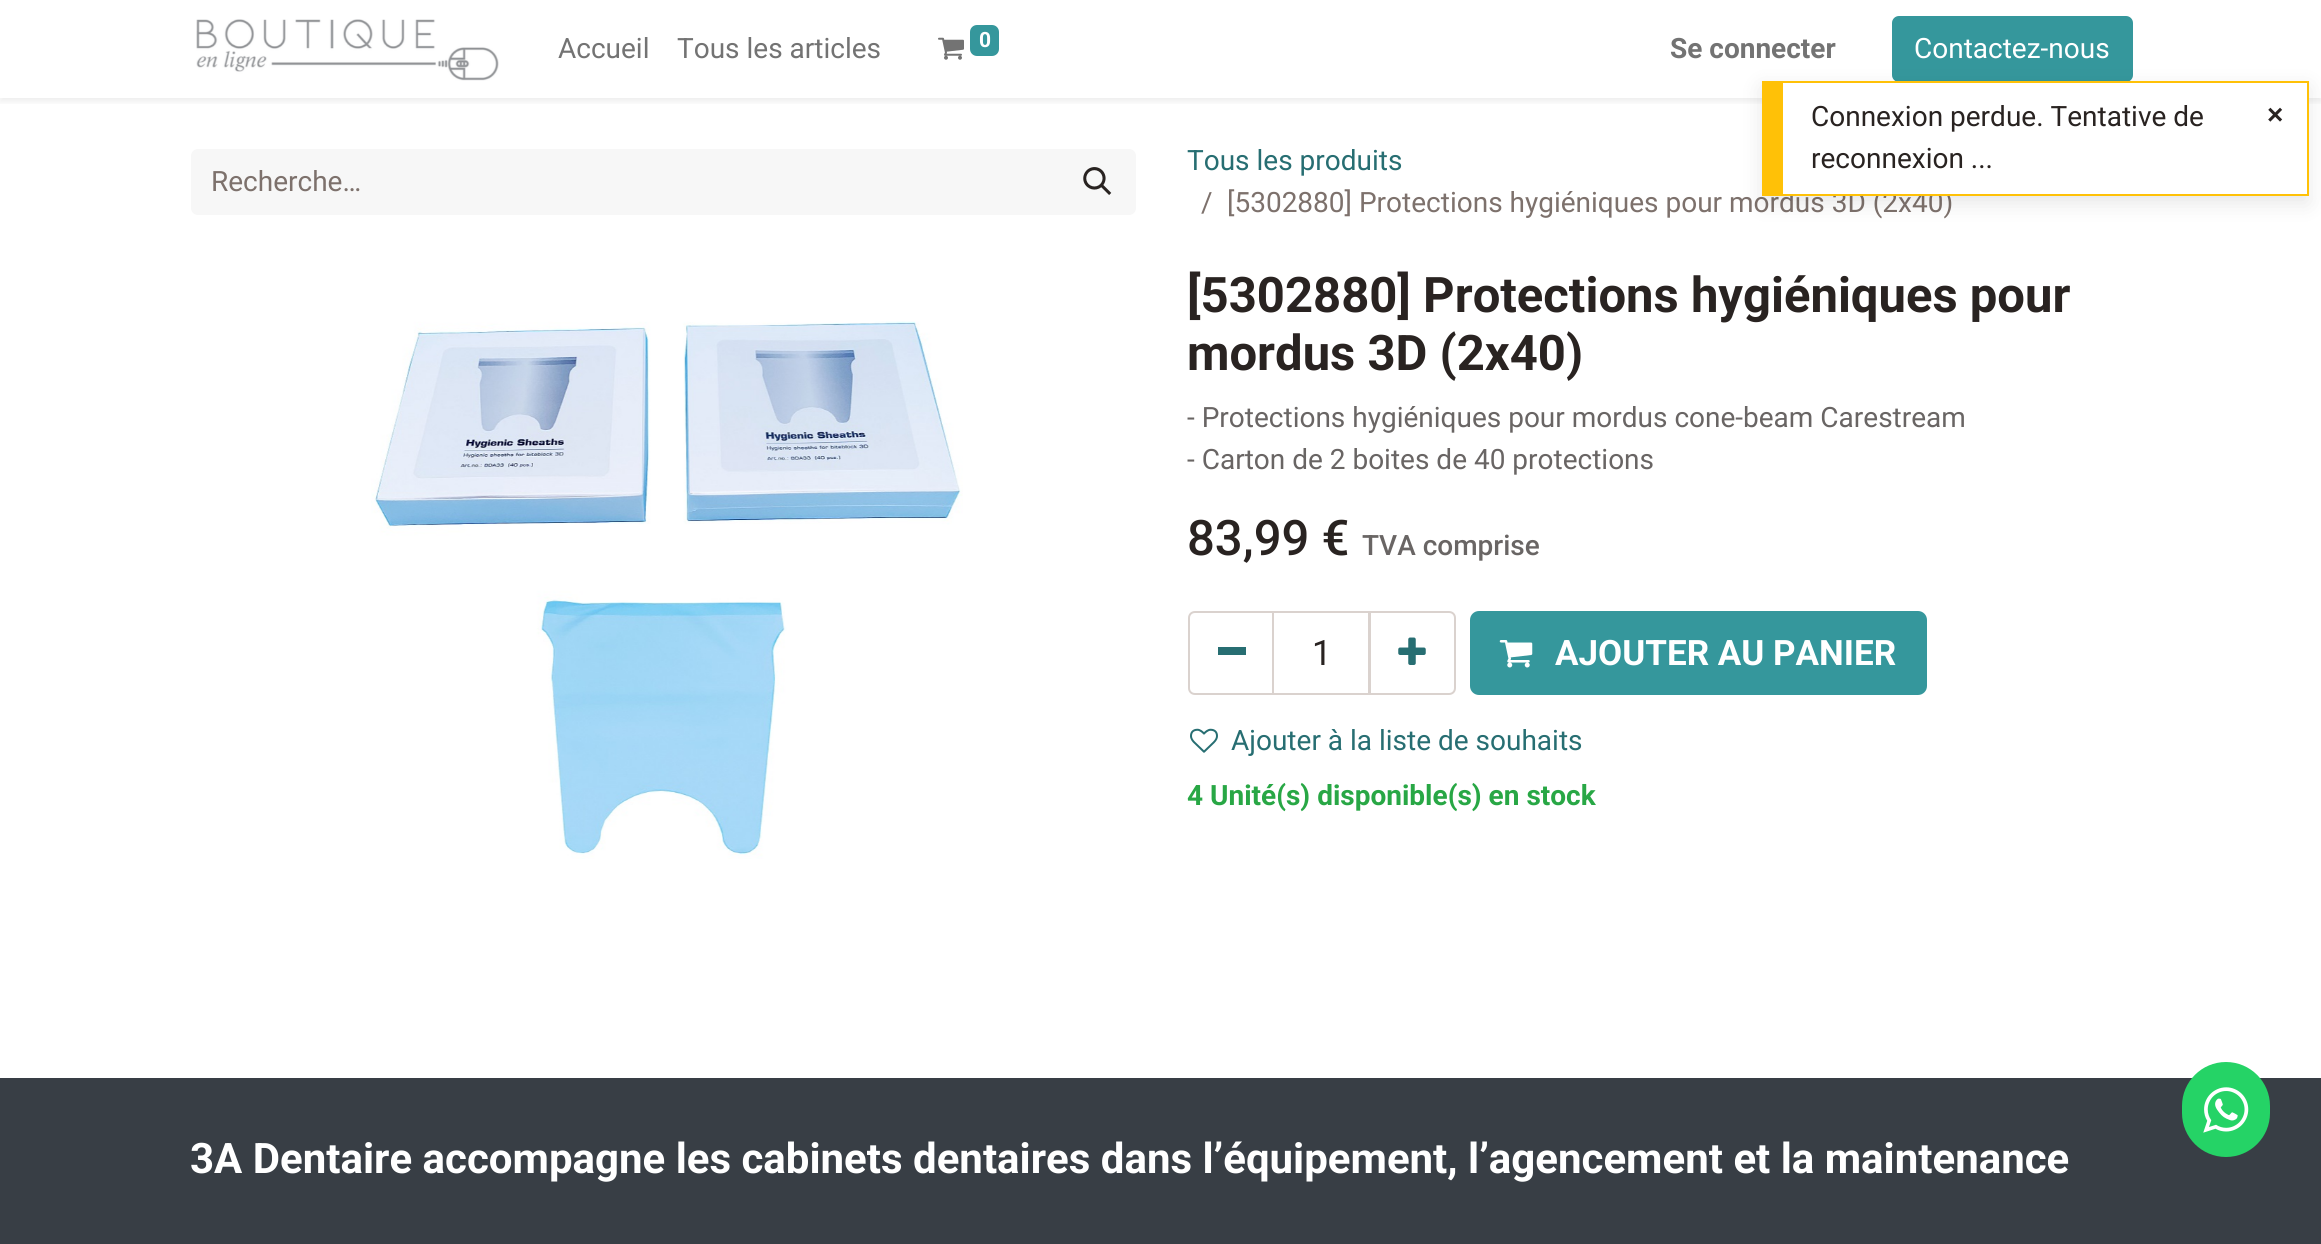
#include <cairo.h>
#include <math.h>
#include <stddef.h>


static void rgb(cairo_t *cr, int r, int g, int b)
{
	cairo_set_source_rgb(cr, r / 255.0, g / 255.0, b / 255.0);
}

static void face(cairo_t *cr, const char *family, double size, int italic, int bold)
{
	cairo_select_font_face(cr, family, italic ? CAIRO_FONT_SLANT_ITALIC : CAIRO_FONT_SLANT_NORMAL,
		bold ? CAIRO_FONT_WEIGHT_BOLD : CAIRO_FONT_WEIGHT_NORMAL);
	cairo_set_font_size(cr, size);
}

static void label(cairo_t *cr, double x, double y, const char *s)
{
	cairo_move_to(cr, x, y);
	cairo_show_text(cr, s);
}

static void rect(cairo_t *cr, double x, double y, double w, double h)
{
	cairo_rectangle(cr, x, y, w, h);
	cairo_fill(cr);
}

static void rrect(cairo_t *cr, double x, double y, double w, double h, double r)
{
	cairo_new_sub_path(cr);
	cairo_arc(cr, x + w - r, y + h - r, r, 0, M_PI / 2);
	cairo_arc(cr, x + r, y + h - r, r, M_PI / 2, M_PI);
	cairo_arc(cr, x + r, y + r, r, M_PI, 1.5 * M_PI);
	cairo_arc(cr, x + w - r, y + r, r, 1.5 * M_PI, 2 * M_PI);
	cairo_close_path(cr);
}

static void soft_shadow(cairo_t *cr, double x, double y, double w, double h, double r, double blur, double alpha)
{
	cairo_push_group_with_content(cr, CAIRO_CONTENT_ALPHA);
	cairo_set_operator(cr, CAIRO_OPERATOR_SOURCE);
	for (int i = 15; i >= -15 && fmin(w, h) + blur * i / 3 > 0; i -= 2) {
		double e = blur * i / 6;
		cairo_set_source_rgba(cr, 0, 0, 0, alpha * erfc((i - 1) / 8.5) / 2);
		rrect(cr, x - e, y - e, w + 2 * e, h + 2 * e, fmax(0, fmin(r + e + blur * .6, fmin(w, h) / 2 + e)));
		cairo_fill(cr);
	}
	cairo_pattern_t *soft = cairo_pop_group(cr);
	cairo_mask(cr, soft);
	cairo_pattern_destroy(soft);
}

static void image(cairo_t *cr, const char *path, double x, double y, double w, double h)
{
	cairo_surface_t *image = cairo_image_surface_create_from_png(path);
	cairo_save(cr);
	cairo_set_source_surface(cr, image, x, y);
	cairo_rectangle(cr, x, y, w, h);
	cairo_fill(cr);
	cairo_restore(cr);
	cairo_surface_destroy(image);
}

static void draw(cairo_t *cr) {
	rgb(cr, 255, 255, 255);
	cairo_paint(cr);
	cairo_save(cr);
	cairo_rectangle(cr, 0, 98, 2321, 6);
	cairo_clip(cr);
	rgb(cr, 0, 0, 0);
	soft_shadow(cr, 0, 4, 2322, 98, 0, 3.5, 0.07);
	cairo_restore(cr);
	image(cr, "image0.png", 196, 19, 303, 62);
	face(cr, "Roboto", 28, 0, 0);
	rgb(cr, 115, 115, 115);
	label(cr, 558, 58, "Accueil");
	label(cr, 677, 58, "Tous les articles");
	image(cr, "image1.png", 938, 37, 26, 23);
	rgb(cr, 53, 151, 156);
	rrect(cr, 970, 25, 29, 31, 7);
	cairo_fill(cr);
	face(cr, "Roboto", 21, 0, 1);
	rgb(cr, 255, 255, 255);
	label(cr, 979, 47, "0");
	face(cr, "Roboto", 28, 0, 1);
	rgb(cr, 115, 115, 115);
	label(cr, 1670, 58, "Se connecter");
	rgb(cr, 53, 151, 156);
	rrect(cr, 1893, 17, 239, 64, 6);
	cairo_fill_preserve(cr);
	cairo_stroke(cr);
	face(cr, "Roboto", 28, 0, 0);
	rgb(cr, 255, 255, 255);
	label(cr, 1914, 58, "Contactez-nous");
	rgb(cr, 247, 247, 247);
	cairo_new_path(cr);
	cairo_move_to(cr, 198, 149);
	cairo_line_to(cr, 1062, 149);
	cairo_line_to(cr, 1062, 215);
	cairo_line_to(cr, 198, 215);
	cairo_curve_to(cr, 194, 215, 191, 212, 191, 208);
	cairo_line_to(cr, 191, 156);
	cairo_curve_to(cr, 191, 152, 194, 149, 198, 149);
	cairo_close_path(cr);
	cairo_fill(cr);
	rgb(cr, 125, 113, 108);
	label(cr, 211, 191, "Recherche…");
	rgb(cr, 247, 247, 247);
	cairo_new_path(cr);
	cairo_move_to(cr, 1061, 149);
	cairo_line_to(cr, 1129, 149);
	cairo_curve_to(cr, 1133, 149, 1136, 152, 1136, 156);
	cairo_line_to(cr, 1136, 208);
	cairo_curve_to(cr, 1136, 212, 1133, 215, 1129, 215);
	cairo_line_to(cr, 1061, 215);
	cairo_close_path(cr);
	cairo_fill(cr);
	image(cr, "image2.png", 1083, 167, 29, 28);
	rgb(cr, 39, 110, 114);
	label(cr, 1187, 170, "Tous les produits");
	rgb(cr, 125, 113, 108);
	label(cr, 1201, 212, "/");
	label(cr, 1227, 212, "[5302880] Protections hygiéniques pour mordus 3D (2x40)");
	image(cr, "image3.png", 371, 321, 592, 538);
	face(cr, "Roboto", 49, 0, 1);
	rgb(cr, 41, 35, 33);
	label(cr, 1187, 312, "[5302880] Protections hygiéniques pour");
	label(cr, 1187, 370, "mordus 3D (2x40)");
	face(cr, "Roboto", 28, 0, 0);
	rgb(cr, 105, 101, 100);
	label(cr, 1187, 427, "- Protections hygiéniques pour mordus cone-beam Carestream");
	label(cr, 1187, 469, "- Carton de 2 boites de 40 protections");
	face(cr, "Roboto Medium", 49, 0, 0);
	rgb(cr, 41, 35, 33);
	label(cr, 1187, 555, "83,99 €");
	face(cr, "Roboto Medium", 28, 0, 0);
	rgb(cr, 105, 101, 100);
	label(cr, 1362, 555, "TVA comprise");
	cairo_rectangle(cr, 1273, 612, 96, 82);
	rgb(cr, 218, 210, 206);
	cairo_stroke(cr);
	cairo_new_path(cr);
	cairo_move_to(cr, 1195, 612);
	cairo_line_to(cr, 1273, 612);
	cairo_line_to(cr, 1273, 694);
	cairo_line_to(cr, 1195, 694);
	cairo_curve_to(cr, 1191.5, 694, 1189, 691.5, 1189, 688);
	cairo_line_to(cr, 1189, 618);
	cairo_curve_to(cr, 1189, 614.5, 1191.5, 612, 1195, 612);
	cairo_close_path(cr);
	cairo_stroke(cr);
	rgb(cr, 39, 110, 114);
	rect(cr, 1218, 647, 28, 8);
	face(cr, "Roboto", 35, 0, 0);
	rgb(cr, 41, 35, 33);
	label(cr, 1312, 665, "1");
	cairo_new_path(cr);
	cairo_move_to(cr, 1370, 612);
	cairo_line_to(cr, 1449, 612);
	cairo_curve_to(cr, 1452.5, 612, 1455, 614.5, 1455, 618);
	cairo_line_to(cr, 1455, 688);
	cairo_curve_to(cr, 1455, 691.5, 1452.5, 694, 1449, 694);
	cairo_line_to(cr, 1370, 694);
	cairo_close_path(cr);
	rgb(cr, 218, 210, 206);
	cairo_stroke(cr);
	image(cr, "image4.png", 1398, 637, 28, 28);
	rgb(cr, 53, 151, 156);
	rrect(cr, 1471, 612, 455, 82, 8);
	cairo_fill_preserve(cr);
	cairo_stroke(cr);
	image(cr, "image5.png", 1499, 640, 34, 28);
	face(cr, "Roboto", 35, 0, 1);
	rgb(cr, 255, 255, 255);
	label(cr, 1555, 665, "AJOUTER AU PANIER");
	image(cr, "image6.png", 1190, 728, 28, 25);
	face(cr, "Roboto", 28, 0, 0);
	rgb(cr, 39, 110, 114);
	label(cr, 1231, 750, "Ajouter à la liste de souhaits");
	face(cr, "Roboto", 28, 0, 1);
	rgb(cr, 40, 167, 69);
	label(cr, 1187, 805, "4 Unité(s) disponible(s) en stock");
	rgb(cr, 56, 62, 69);
	rect(cr, 0, 1078, 2321, 166);
	face(cr, "Roboto", 42, 0, 1);
	rgb(cr, 255, 255, 255);
	label(cr, 190, 1173, "3A Dentaire accompagne les cabinets dentaires dans l’équipement, l’agencement et la maintenance");
	rgb(cr, 0, 0, 0);
	soft_shadow(cr, 1762, 88, 546, 115, 0, 10.5, 0.1);
	rgb(cr, 255, 255, 255);
	rect(cr, 1783, 83, 524, 111);
	rgb(cr, 255, 193, 7);
	rect(cr, 1783, 81, 525, 2);
	rect(cr, 2307, 81, 2, 115);
	rect(cr, 1783, 194, 525, 2);
	rect(cr, 1762, 81, 21, 115);
	face(cr, "Roboto", 28, 0, 0);
	rgb(cr, 41, 35, 33);
	label(cr, 1811, 126, "Connexion perdue. Tentative de");
	label(cr, 1811, 168, "reconnexion ...");
	face(cr, "Liberation Sans", 28, 0, 1);
	label(cr, 2267, 124, "×");
	rgb(cr, 37, 211, 102);
	rrect(cr, 2182, 1062, 88, 95, 44);
	cairo_fill(cr);
	image(cr, "image7.png", 2203, 1087, 46, 46);
}

int main(void) {
	cairo_surface_t *surface = cairo_image_surface_create(CAIRO_FORMAT_RGB24, 2321, 1244);
	cairo_t *cr = cairo_create(surface);
	cairo_font_options_t *options = cairo_font_options_create();
	cairo_font_options_set_hint_metrics(options, CAIRO_HINT_METRICS_OFF);
	cairo_font_options_set_hint_style(options, CAIRO_HINT_STYLE_NONE);
	cairo_set_font_options(cr, options);
	cairo_set_miter_limit(cr, 4);
	draw(cr);
	cairo_surface_write_to_png(surface, "render.png");
	cairo_font_options_destroy(options);
	cairo_destroy(cr);
	cairo_surface_destroy(surface);
	return 0;
}
